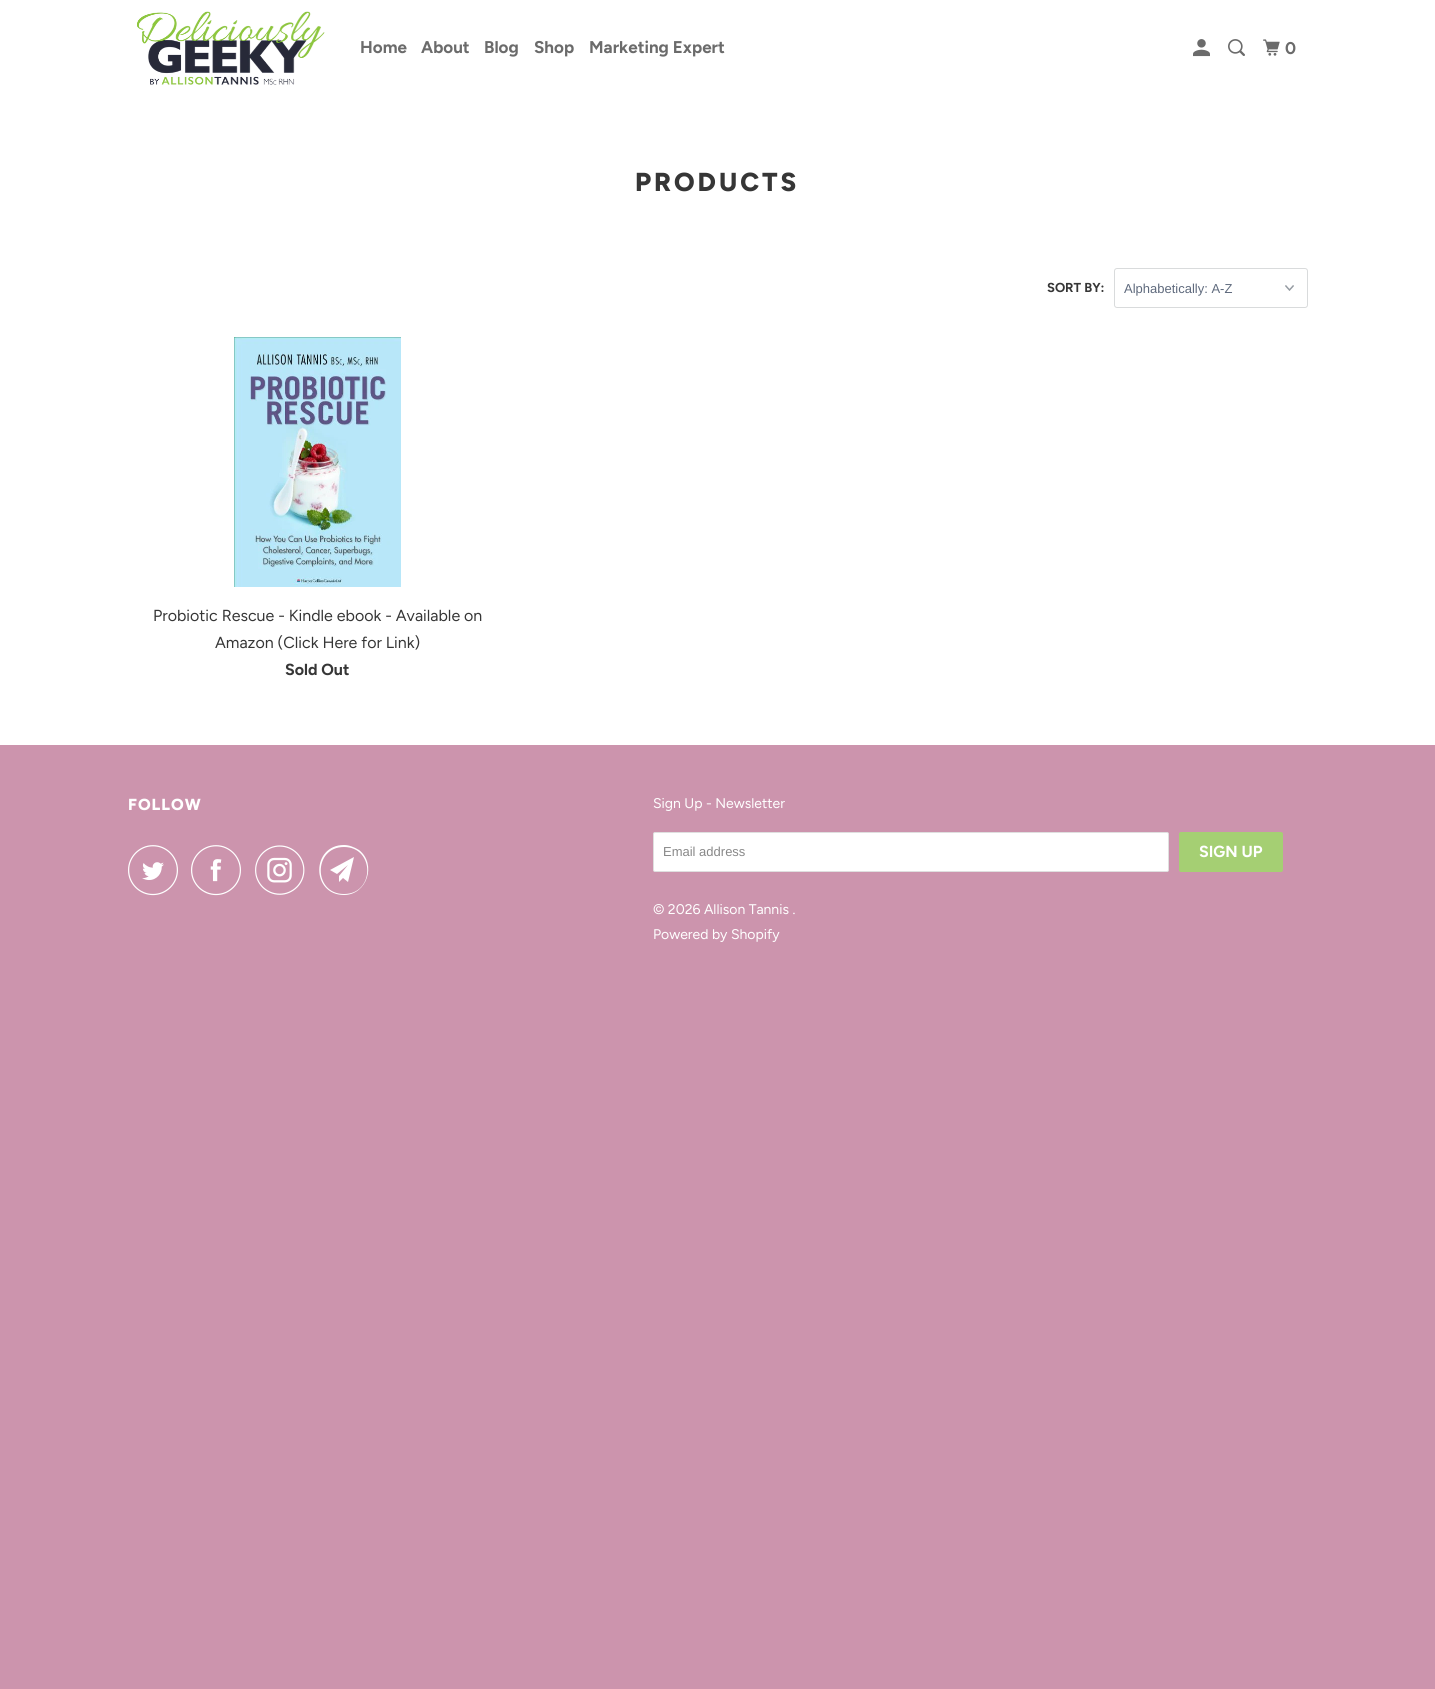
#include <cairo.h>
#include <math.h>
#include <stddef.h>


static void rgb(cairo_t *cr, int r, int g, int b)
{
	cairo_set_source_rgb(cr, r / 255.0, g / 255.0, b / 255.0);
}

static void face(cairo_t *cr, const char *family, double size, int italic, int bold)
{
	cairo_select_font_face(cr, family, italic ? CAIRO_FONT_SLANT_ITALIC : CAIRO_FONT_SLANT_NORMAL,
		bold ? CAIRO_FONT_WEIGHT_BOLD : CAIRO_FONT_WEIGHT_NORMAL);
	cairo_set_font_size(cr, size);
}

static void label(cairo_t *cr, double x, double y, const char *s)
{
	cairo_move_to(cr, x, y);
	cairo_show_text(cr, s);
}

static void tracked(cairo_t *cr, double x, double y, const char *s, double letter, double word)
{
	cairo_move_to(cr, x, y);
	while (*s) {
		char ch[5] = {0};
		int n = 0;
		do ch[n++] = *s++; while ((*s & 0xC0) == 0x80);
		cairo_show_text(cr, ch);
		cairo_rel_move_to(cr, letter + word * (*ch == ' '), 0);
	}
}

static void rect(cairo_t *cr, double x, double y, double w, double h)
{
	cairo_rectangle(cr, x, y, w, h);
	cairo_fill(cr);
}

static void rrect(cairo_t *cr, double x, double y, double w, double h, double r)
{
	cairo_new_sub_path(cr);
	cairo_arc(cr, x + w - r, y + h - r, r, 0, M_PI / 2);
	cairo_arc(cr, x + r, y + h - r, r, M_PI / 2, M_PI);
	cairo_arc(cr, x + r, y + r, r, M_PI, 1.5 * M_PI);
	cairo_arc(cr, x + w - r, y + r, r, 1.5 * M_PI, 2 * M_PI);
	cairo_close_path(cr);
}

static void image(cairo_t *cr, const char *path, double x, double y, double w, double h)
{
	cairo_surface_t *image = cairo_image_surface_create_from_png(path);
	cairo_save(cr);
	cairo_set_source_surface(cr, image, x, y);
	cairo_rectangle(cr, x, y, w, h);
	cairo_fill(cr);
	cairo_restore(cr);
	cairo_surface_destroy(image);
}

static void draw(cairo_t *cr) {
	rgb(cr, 204, 148, 173);
	cairo_paint(cr);
	rgb(cr, 255, 255, 255);
	rect(cr, 0, 0, 1435, 745);
	image(cr, "image0.png", 137, 11, 188, 74);
	face(cr, "Figtree", 17, 0, 1);
	rgb(cr, 107, 107, 107);
	label(cr, 360, 53, "Home");
	label(cr, 421, 53, "About");
	label(cr, 484, 53, "Blog");
	label(cr, 534, 53, "Shop");
	label(cr, 589, 53, "Marketing Expert");
	image(cr, "image1.png", 1193, 39, 17, 18);
	image(cr, "image2.png", 1228, 39, 17, 17);
	image(cr, "image3.png", 1263, 39, 17, 17);
	label(cr, 1285, 54, "0");
	face(cr, "Figtree ExtraBold", 26, 0, 0);
	rgb(cr, 54, 54, 54);
	tracked(cr, 635, 191, "PRODUCTS", 3, 0);
	face(cr, "Figtree", 13, 0, 1);
	label(cr, 1047, 292, "SORT BY:");
	image(cr, "image4.png", 1285, 285, 9, 6);
	rrect(cr, 1114.5, 268.5, 193, 39, 2.5);
	rgb(cr, 217, 219, 220);
	cairo_set_line_width(cr, 1);
	cairo_stroke(cr);
	face(cr, "Liberation Sans", 13, 0, 0);
	rgb(cr, 95, 106, 125);
	label(cr, 1124, 293, "Alphabetically: A-Z");
	image(cr, "image5.png", 234, 337, 167, 250);
	face(cr, "Figtree", 16, 0, 0);
	rgb(cr, 54, 54, 54);
	label(cr, 153, 621, "Probiotic Rescue - Kindle ebook - Available on");
	label(cr, 215, 648, "Amazon (Click Here for Link)");
	face(cr, "Figtree", 16, 0, 1);
	label(cr, 285, 675, "Sold Out");
	face(cr, "Figtree ExtraBold", 16, 0, 0);
	rgb(cr, 255, 255, 255);
	tracked(cr, 128, 810, "FOLLOW", 1, 0);
	image(cr, "image6.png", 128, 845, 50, 51);
	image(cr, "image7.png", 191, 845, 50, 51);
	image(cr, "image8.png", 255, 845, 50, 50);
	cairo_new_path(cr);
	cairo_move_to(cr, 348, 882);
	cairo_line_to(cr, 343, 878);
	cairo_line_to(cr, 339, 882);
	cairo_line_to(cr, 339, 876);
	cairo_line_to(cr, 348, 865);
	cairo_line_to(cr, 337, 874);
	cairo_line_to(cr, 330, 870);
	cairo_line_to(cr, 354, 857);
	cairo_close_path(cr);
	cairo_move_to(cr, 344, 847);
	cairo_curve_to(cr, 313, 847, 313, 894, 344, 894);
	cairo_curve_to(cr, 375, 894, 375, 847, 344, 847);
	cairo_close_path(cr);
	cairo_move_to(cr, 344, 895);
	cairo_curve_to(cr, 311, 895, 311, 845, 344, 845);
	cairo_curve_to(cr, 349, 845, 354, 847, 359, 850);
	cairo_curve_to(cr, 377, 864, 367, 895, 344, 895);
	cairo_close_path(cr);
	cairo_fill(cr);
	face(cr, "Figtree", 14, 0, 0);
	label(cr, 653, 808, "Sign Up - Newsletter");
	rrect(cr, 653.5, 832.5, 515, 39, 1.5);
	cairo_fill_preserve(cr);
	rgb(cr, 223, 223, 223);
	cairo_stroke(cr);
	face(cr, "Liberation Sans", 13, 0, 0);
	rgb(cr, 136, 136, 136);
	label(cr, 663, 856, "Email address");
	rgb(cr, 165, 207, 115);
	rrect(cr, 1179, 832, 104, 40, 2);
	cairo_fill(cr);
	face(cr, "Figtree", 16, 0, 1);
	rgb(cr, 255, 255, 255);
	label(cr, 1199, 857, "SIGN UP");
	face(cr, "Figtree", 14, 0, 0);
	label(cr, 653, 914, "© 2026 Allison Tannis .");
	label(cr, 653, 939, "Powered by Shopify");
}

int main(void) {
	cairo_surface_t *surface = cairo_image_surface_create(CAIRO_FORMAT_RGB24, 1435, 1689);
	cairo_t *cr = cairo_create(surface);
	cairo_font_options_t *options = cairo_font_options_create();
	cairo_font_options_set_hint_metrics(options, CAIRO_HINT_METRICS_OFF);
	cairo_font_options_set_hint_style(options, CAIRO_HINT_STYLE_NONE);
	cairo_set_font_options(cr, options);
	cairo_set_miter_limit(cr, 4);
	draw(cr);
	cairo_surface_write_to_png(surface, "render.png");
	cairo_font_options_destroy(options);
	cairo_destroy(cr);
	cairo_surface_destroy(surface);
	return 0;
}
